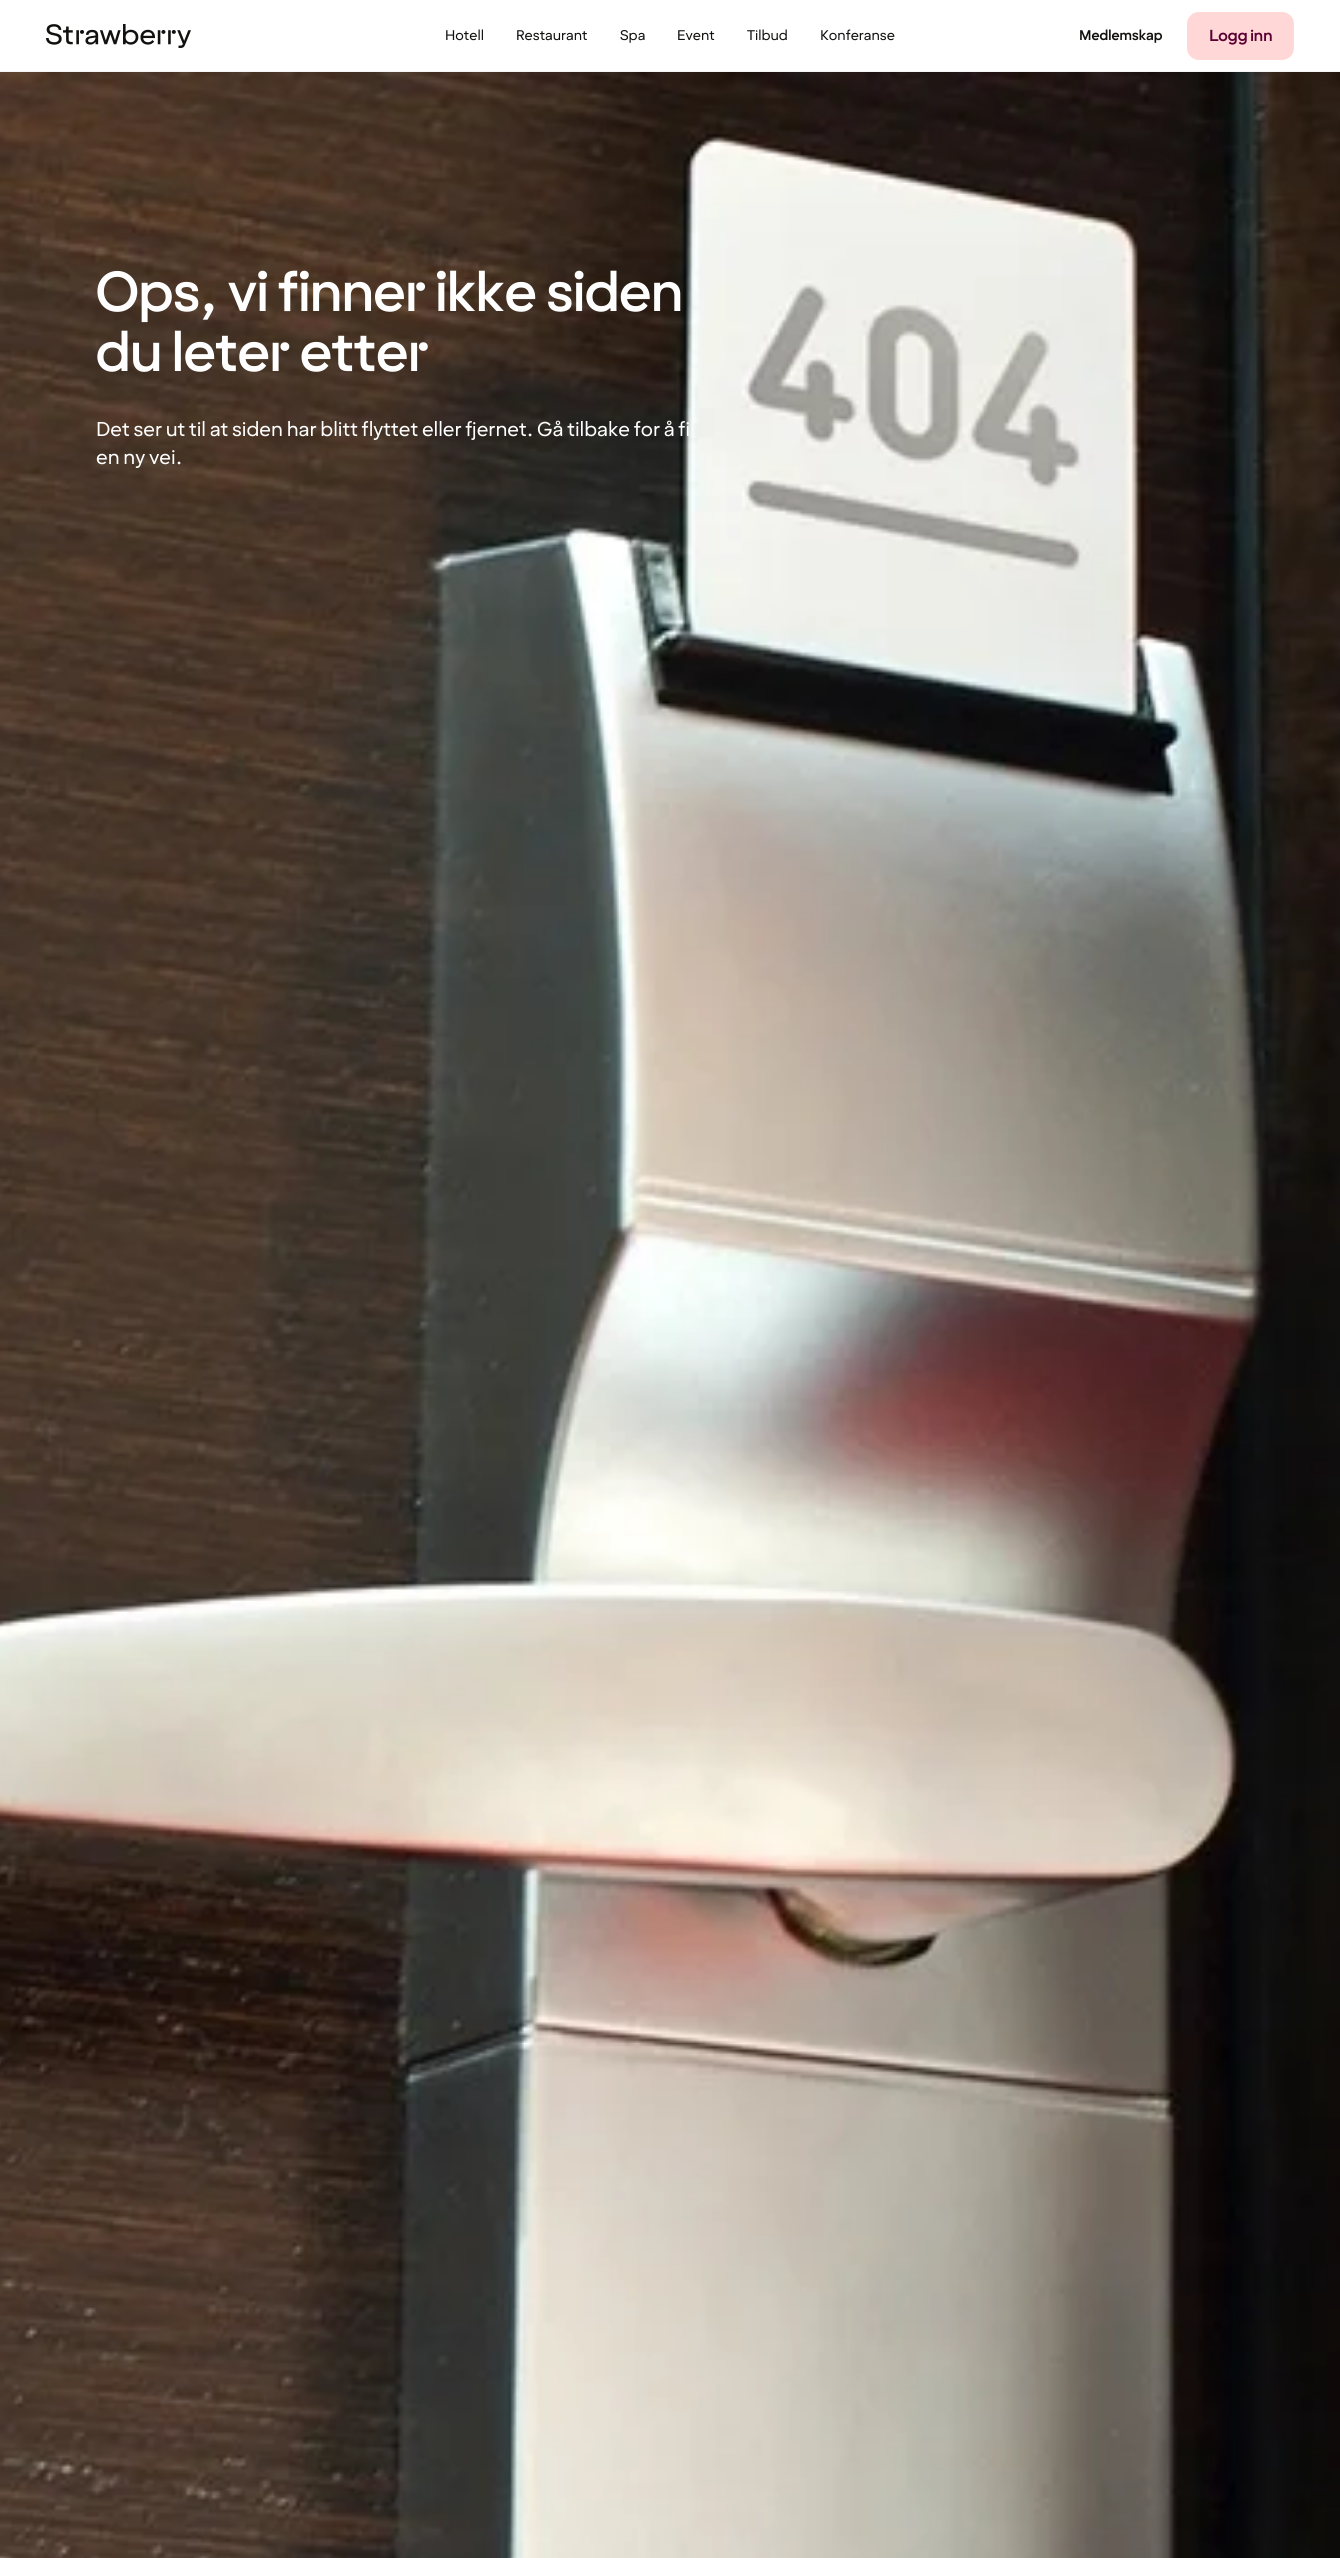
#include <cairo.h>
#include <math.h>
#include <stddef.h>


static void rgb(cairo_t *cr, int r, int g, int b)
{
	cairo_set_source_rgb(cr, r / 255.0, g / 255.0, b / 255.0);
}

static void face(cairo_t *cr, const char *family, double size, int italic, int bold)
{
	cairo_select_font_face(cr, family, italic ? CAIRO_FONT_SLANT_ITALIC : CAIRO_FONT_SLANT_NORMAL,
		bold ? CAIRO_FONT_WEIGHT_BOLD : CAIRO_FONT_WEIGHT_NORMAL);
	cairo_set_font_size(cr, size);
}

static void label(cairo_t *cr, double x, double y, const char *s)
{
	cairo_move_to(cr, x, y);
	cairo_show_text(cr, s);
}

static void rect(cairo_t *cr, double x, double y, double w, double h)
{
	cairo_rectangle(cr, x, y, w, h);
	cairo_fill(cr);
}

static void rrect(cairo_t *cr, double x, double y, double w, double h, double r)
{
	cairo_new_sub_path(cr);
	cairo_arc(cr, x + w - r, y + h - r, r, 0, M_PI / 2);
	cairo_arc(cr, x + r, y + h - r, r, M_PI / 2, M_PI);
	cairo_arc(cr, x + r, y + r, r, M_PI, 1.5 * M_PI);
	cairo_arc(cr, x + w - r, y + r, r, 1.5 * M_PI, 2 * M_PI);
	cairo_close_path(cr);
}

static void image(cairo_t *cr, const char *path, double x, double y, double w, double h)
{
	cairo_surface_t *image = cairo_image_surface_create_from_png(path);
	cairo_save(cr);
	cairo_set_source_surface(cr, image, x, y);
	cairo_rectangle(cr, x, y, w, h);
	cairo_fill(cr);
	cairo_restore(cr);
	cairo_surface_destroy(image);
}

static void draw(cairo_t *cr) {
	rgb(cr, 255, 255, 255);
	cairo_paint(cr);
	rgb(cr, 247, 245, 243);
	rect(cr, 0, 71, 1340, 1);
	image(cr, "image0.png", 46, 24, 145, 24);
	face(cr, "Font", 14, 0, 0);
	rgb(cr, 18, 17, 16);
	label(cr, 445, 40, "Hotell");
	label(cr, 516, 40, "Restaurant");
	label(cr, 620, 40, "Spa");
	label(cr, 677, 40, "Event");
	label(cr, 747, 40, "Tilbud");
	label(cr, 820, 40, "Konferanse");
	face(cr, "Font", 14, 0, 1);
	label(cr, 1079, 40, "Medlemskap");
	rgb(cr, 255, 215, 215);
	rrect(cr, 1188, 13, 105, 46, 11);
	cairo_fill_preserve(cr);
	cairo_stroke(cr);
	face(cr, "Font", 16, 0, 1);
	rgb(cr, 90, 0, 50);
	label(cr, 1209, 41, "Logg inn");
	image(cr, "image1.png", 0, 72, 1340, 2486);
	face(cr, "Font Medium", 56, 0, 0);
	rgb(cr, 255, 255, 255);
	label(cr, 96, 311, "Ops, vi finner ikke siden");
	label(cr, 96, 371, "du leter etter");
	face(cr, "Font", 20, 0, 0);
	label(cr, 96, 436, "Det ser ut til at siden har blitt flyttet eller fjernet. Gå tilbake for å fi");
	label(cr, 96, 464, "en ny vei.");
}

int main(void) {
	cairo_surface_t *surface = cairo_image_surface_create(CAIRO_FORMAT_RGB24, 1340, 2558);
	cairo_t *cr = cairo_create(surface);
	cairo_font_options_t *options = cairo_font_options_create();
	cairo_font_options_set_hint_metrics(options, CAIRO_HINT_METRICS_OFF);
	cairo_font_options_set_hint_style(options, CAIRO_HINT_STYLE_NONE);
	cairo_set_font_options(cr, options);
	cairo_set_miter_limit(cr, 4);
	draw(cr);
	cairo_surface_write_to_png(surface, "render.png");
	cairo_font_options_destroy(options);
	cairo_destroy(cr);
	cairo_surface_destroy(surface);
	return 0;
}
